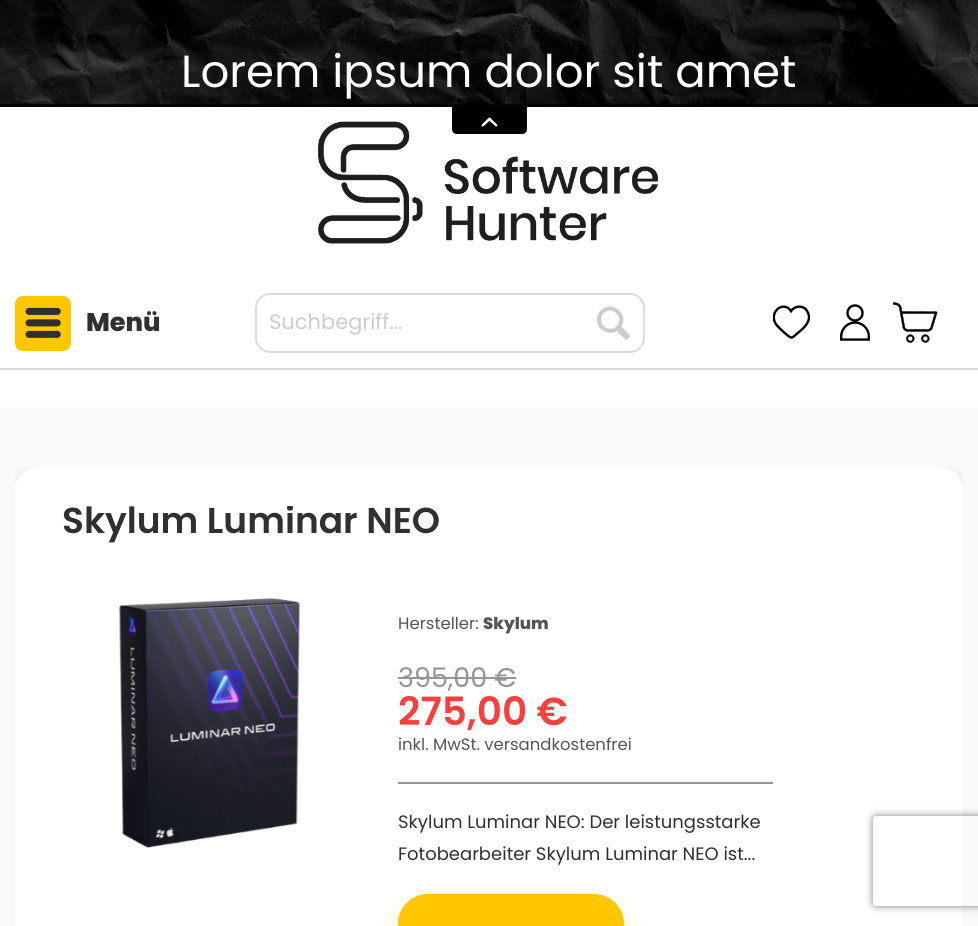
#include <cairo.h>
#include <math.h>
#include <stddef.h>


static void rgb(cairo_t *cr, int r, int g, int b)
{
	cairo_set_source_rgb(cr, r / 255.0, g / 255.0, b / 255.0);
}

static void face(cairo_t *cr, const char *family, double size, int italic, int bold)
{
	cairo_select_font_face(cr, family, italic ? CAIRO_FONT_SLANT_ITALIC : CAIRO_FONT_SLANT_NORMAL,
		bold ? CAIRO_FONT_WEIGHT_BOLD : CAIRO_FONT_WEIGHT_NORMAL);
	cairo_set_font_size(cr, size);
}

static void label(cairo_t *cr, double x, double y, const char *s)
{
	cairo_move_to(cr, x, y);
	cairo_show_text(cr, s);
}

static void rect(cairo_t *cr, double x, double y, double w, double h)
{
	cairo_rectangle(cr, x, y, w, h);
	cairo_fill(cr);
}

static void rrect(cairo_t *cr, double x, double y, double w, double h, double r)
{
	cairo_new_sub_path(cr);
	cairo_arc(cr, x + w - r, y + h - r, r, 0, M_PI / 2);
	cairo_arc(cr, x + r, y + h - r, r, M_PI / 2, M_PI);
	cairo_arc(cr, x + r, y + r, r, M_PI, 1.5 * M_PI);
	cairo_arc(cr, x + w - r, y + r, r, 1.5 * M_PI, 2 * M_PI);
	cairo_close_path(cr);
}

static void soft_shadow(cairo_t *cr, double x, double y, double w, double h, double r, double blur, double alpha)
{
	cairo_push_group_with_content(cr, CAIRO_CONTENT_ALPHA);
	cairo_set_operator(cr, CAIRO_OPERATOR_SOURCE);
	for (int i = 15; i >= -15 && fmin(w, h) + blur * i / 3 > 0; i -= 2) {
		double e = blur * i / 6;
		cairo_set_source_rgba(cr, 0, 0, 0, alpha * erfc((i - 1) / 8.5) / 2);
		rrect(cr, x - e, y - e, w + 2 * e, h + 2 * e, fmax(0, fmin(r + e + blur * .6, fmin(w, h) / 2 + e)));
		cairo_fill(cr);
	}
	cairo_pattern_t *soft = cairo_pop_group(cr);
	cairo_mask(cr, soft);
	cairo_pattern_destroy(soft);
}

static void image(cairo_t *cr, const char *path, double x, double y, double w, double h)
{
	cairo_surface_t *image = cairo_image_surface_create_from_png(path);
	cairo_save(cr);
	cairo_set_source_surface(cr, image, x, y);
	cairo_rectangle(cr, x, y, w, h);
	cairo_fill(cr);
	cairo_restore(cr);
	cairo_surface_destroy(image);
}

static void draw(cairo_t *cr) {
	rgb(cr, 249, 249, 249);
	cairo_paint(cr);
	rgb(cr, 0, 0, 0);
	rect(cr, 0, 0, 978, 107);
	image(cr, "image0.png", 0, 0, 978, 107);
	cairo_set_source_rgba(cr, 0, 0, 0, 0.8);
	rect(cr, 0, 104, 978, 3);
	face(cr, "Poppins", 45, 0, 0);
	rgb(cr, 255, 255, 255);
	label(cr, 181, 87, "Lorem ipsum dolor sit amet");
	rect(cr, 0, 107, 978, 261);
	image(cr, "image2.png", 318, 121, 341, 123);
	rgb(cr, 0, 0, 0);
	cairo_new_path(cr);
	cairo_move_to(cr, 452, 107);
	cairo_line_to(cr, 527, 107);
	cairo_line_to(cr, 527, 129);
	cairo_curve_to(cr, 527, 132, 525, 134, 522, 134);
	cairo_line_to(cr, 457, 134);
	cairo_curve_to(cr, 454, 134, 452, 132, 452, 129);
	cairo_close_path(cr);
	cairo_fill(cr);
	image(cr, "image1.png", 481, 117, 17, 10);
	cairo_save(cr);
	cairo_rectangle(cr, 773, 305, 37, 36);
	cairo_clip(cr);
	cairo_new_path(cr);
	cairo_move_to(cr, 806, 309.5);
	cairo_curve_to(cr, 802, 305, 794.5, 306, 791, 311);
	cairo_curve_to(cr, 783, 299.5, 767.5, 313, 776.5, 325);
	cairo_curve_to(cr, 777.5, 326.5, 789, 337.5, 791, 337.5);
	cairo_curve_to(cr, 792.5, 338, 795.5, 335, 796.5, 334);
	cairo_curve_to(cr, 802, 329.5, 809.5, 324, 809, 316);
	cairo_curve_to(cr, 808.5, 313.5, 807.5, 311.5, 806, 309.5);
	cairo_close_path(cr);
	cairo_set_line_width(cr, 2.4);
	cairo_stroke(cr);
	cairo_restore(cr);
	image(cr, "image3.png", 840, 304, 30, 37);
	image(cr, "image4.png", 893, 302, 45, 41);
	rgb(cr, 255, 255, 255);
	rect(cr, 0, 370, 978, 37);
	rgb(cr, 218, 218, 229);
	rect(cr, 0, 368, 978, 2);
	rgb(cr, 254, 199, 0);
	rrect(cr, 15, 296, 56, 55, 8);
	cairo_fill(cr);
	image(cr, "image5.png", 25, 307, 36, 31);
	face(cr, "Poppins ExtraBold", 25.5, 0, 0);
	rgb(cr, 48, 48, 48);
	label(cr, 86, 331, "Menü");
	rrect(cr, 256, 294, 388, 58, 14);
	rgb(cr, 219, 219, 219);
	cairo_stroke(cr);
	face(cr, "Poppins", 21, 0, 0);
	rgb(cr, 204, 204, 204);
	label(cr, 269, 329, "Suchbegriff...");
	image(cr, "image6.png", 597, 306, 33, 34);
	cairo_save(cr);
	cairo_rectangle(cr, 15, 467, 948, 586);
	cairo_clip(cr);
	rgb(cr, 0, 0, 0);
	soft_shadow(cr, 15, 467, 948, 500, 23, 6, 0.1);
	cairo_restore(cr);
	rgb(cr, 255, 255, 255);
	rrect(cr, 16, 468, 946, 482, 22);
	cairo_fill_preserve(cr);
	cairo_stroke(cr);
	cairo_save(cr);
	cairo_rectangle(cr, 32, 506, 915, 60);
	cairo_clip(cr);
	face(cr, "Poppins SemiBold", 36, 0, 0);
	rgb(cr, 48, 48, 48);
	label(cr, 62, 533, "Skylum Luminar NEO");
	cairo_restore(cr);
	image(cr, "image7.png", 118, 598, 183, 250);
	face(cr, "Poppins", 16.5, 0, 0);
	rgb(cr, 85, 85, 85);
	label(cr, 398, 629, "Hersteller:");
	face(cr, "Poppins ExtraBold", 16.5, 0, 0);
	label(cr, 483, 629, "Skylum");
	rgb(cr, 149, 149, 149);
	rect(cr, 398, 782, 375, 2);
	face(cr, "Poppins", 27, 0, 0);
	label(cr, 398, 687, "395,00 €");
	rect(cr, 398, 677, 118, 2);
	face(cr, "Poppins SemiBold", 39, 0, 0);
	rgb(cr, 247, 64, 62);
	label(cr, 398, 725, "275,00 €");
	face(cr, "Poppins", 16.5, 0, 0);
	rgb(cr, 85, 85, 85);
	label(cr, 398, 750, "inkl. MwSt. versandkostenfrei");
	face(cr, "Poppins", 18, 0, 0);
	rgb(cr, 48, 48, 48);
	label(cr, 398, 828, "Skylum Luminar NEO: Der leistungsstarke");
	label(cr, 398, 860, "Fotobearbeiter Skylum Luminar NEO ist...");
	rgb(cr, 254, 199, 0);
	soft_shadow(cr, 398, 909, 226, 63, 30, 11, 0.4);
	rgb(cr, 254, 199, 0);
	rrect(cr, 398, 894, 226, 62, 30);
	cairo_fill(cr);
	cairo_save(cr);
	cairo_set_fill_rule(cr, CAIRO_FILL_RULE_EVEN_ODD);
	cairo_new_path(cr);
	cairo_move_to(cr, 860, 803);
	cairo_line_to(cr, 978, 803);
	cairo_line_to(cr, 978, 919);
	cairo_line_to(cr, 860, 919);
	cairo_close_path(cr);
	cairo_move_to(cr, 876, 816);
	cairo_line_to(cr, 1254, 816);
	cairo_curve_to(cr, 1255.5, 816, 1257, 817.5, 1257, 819);
	cairo_line_to(cr, 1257, 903);
	cairo_curve_to(cr, 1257, 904.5, 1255.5, 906, 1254, 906);
	cairo_line_to(cr, 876, 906);
	cairo_curve_to(cr, 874.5, 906, 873, 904.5, 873, 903);
	cairo_line_to(cr, 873, 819);
	cairo_curve_to(cr, 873, 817.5, 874.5, 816, 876, 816);
	cairo_close_path(cr);
	cairo_clip(cr);
	rgb(cr, 128, 128, 128);
	soft_shadow(cr, 873, 816, 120, 90, 3, 4, 1);
	cairo_restore(cr);
}

int main(void) {
	cairo_surface_t *surface = cairo_image_surface_create(CAIRO_FORMAT_RGB24, 978, 926);
	cairo_t *cr = cairo_create(surface);
	cairo_font_options_t *options = cairo_font_options_create();
	cairo_font_options_set_hint_metrics(options, CAIRO_HINT_METRICS_OFF);
	cairo_font_options_set_hint_style(options, CAIRO_HINT_STYLE_NONE);
	cairo_set_font_options(cr, options);
	cairo_set_miter_limit(cr, 4);
	draw(cr);
	cairo_surface_write_to_png(surface, "render.png");
	cairo_font_options_destroy(options);
	cairo_destroy(cr);
	cairo_surface_destroy(surface);
	return 0;
}
